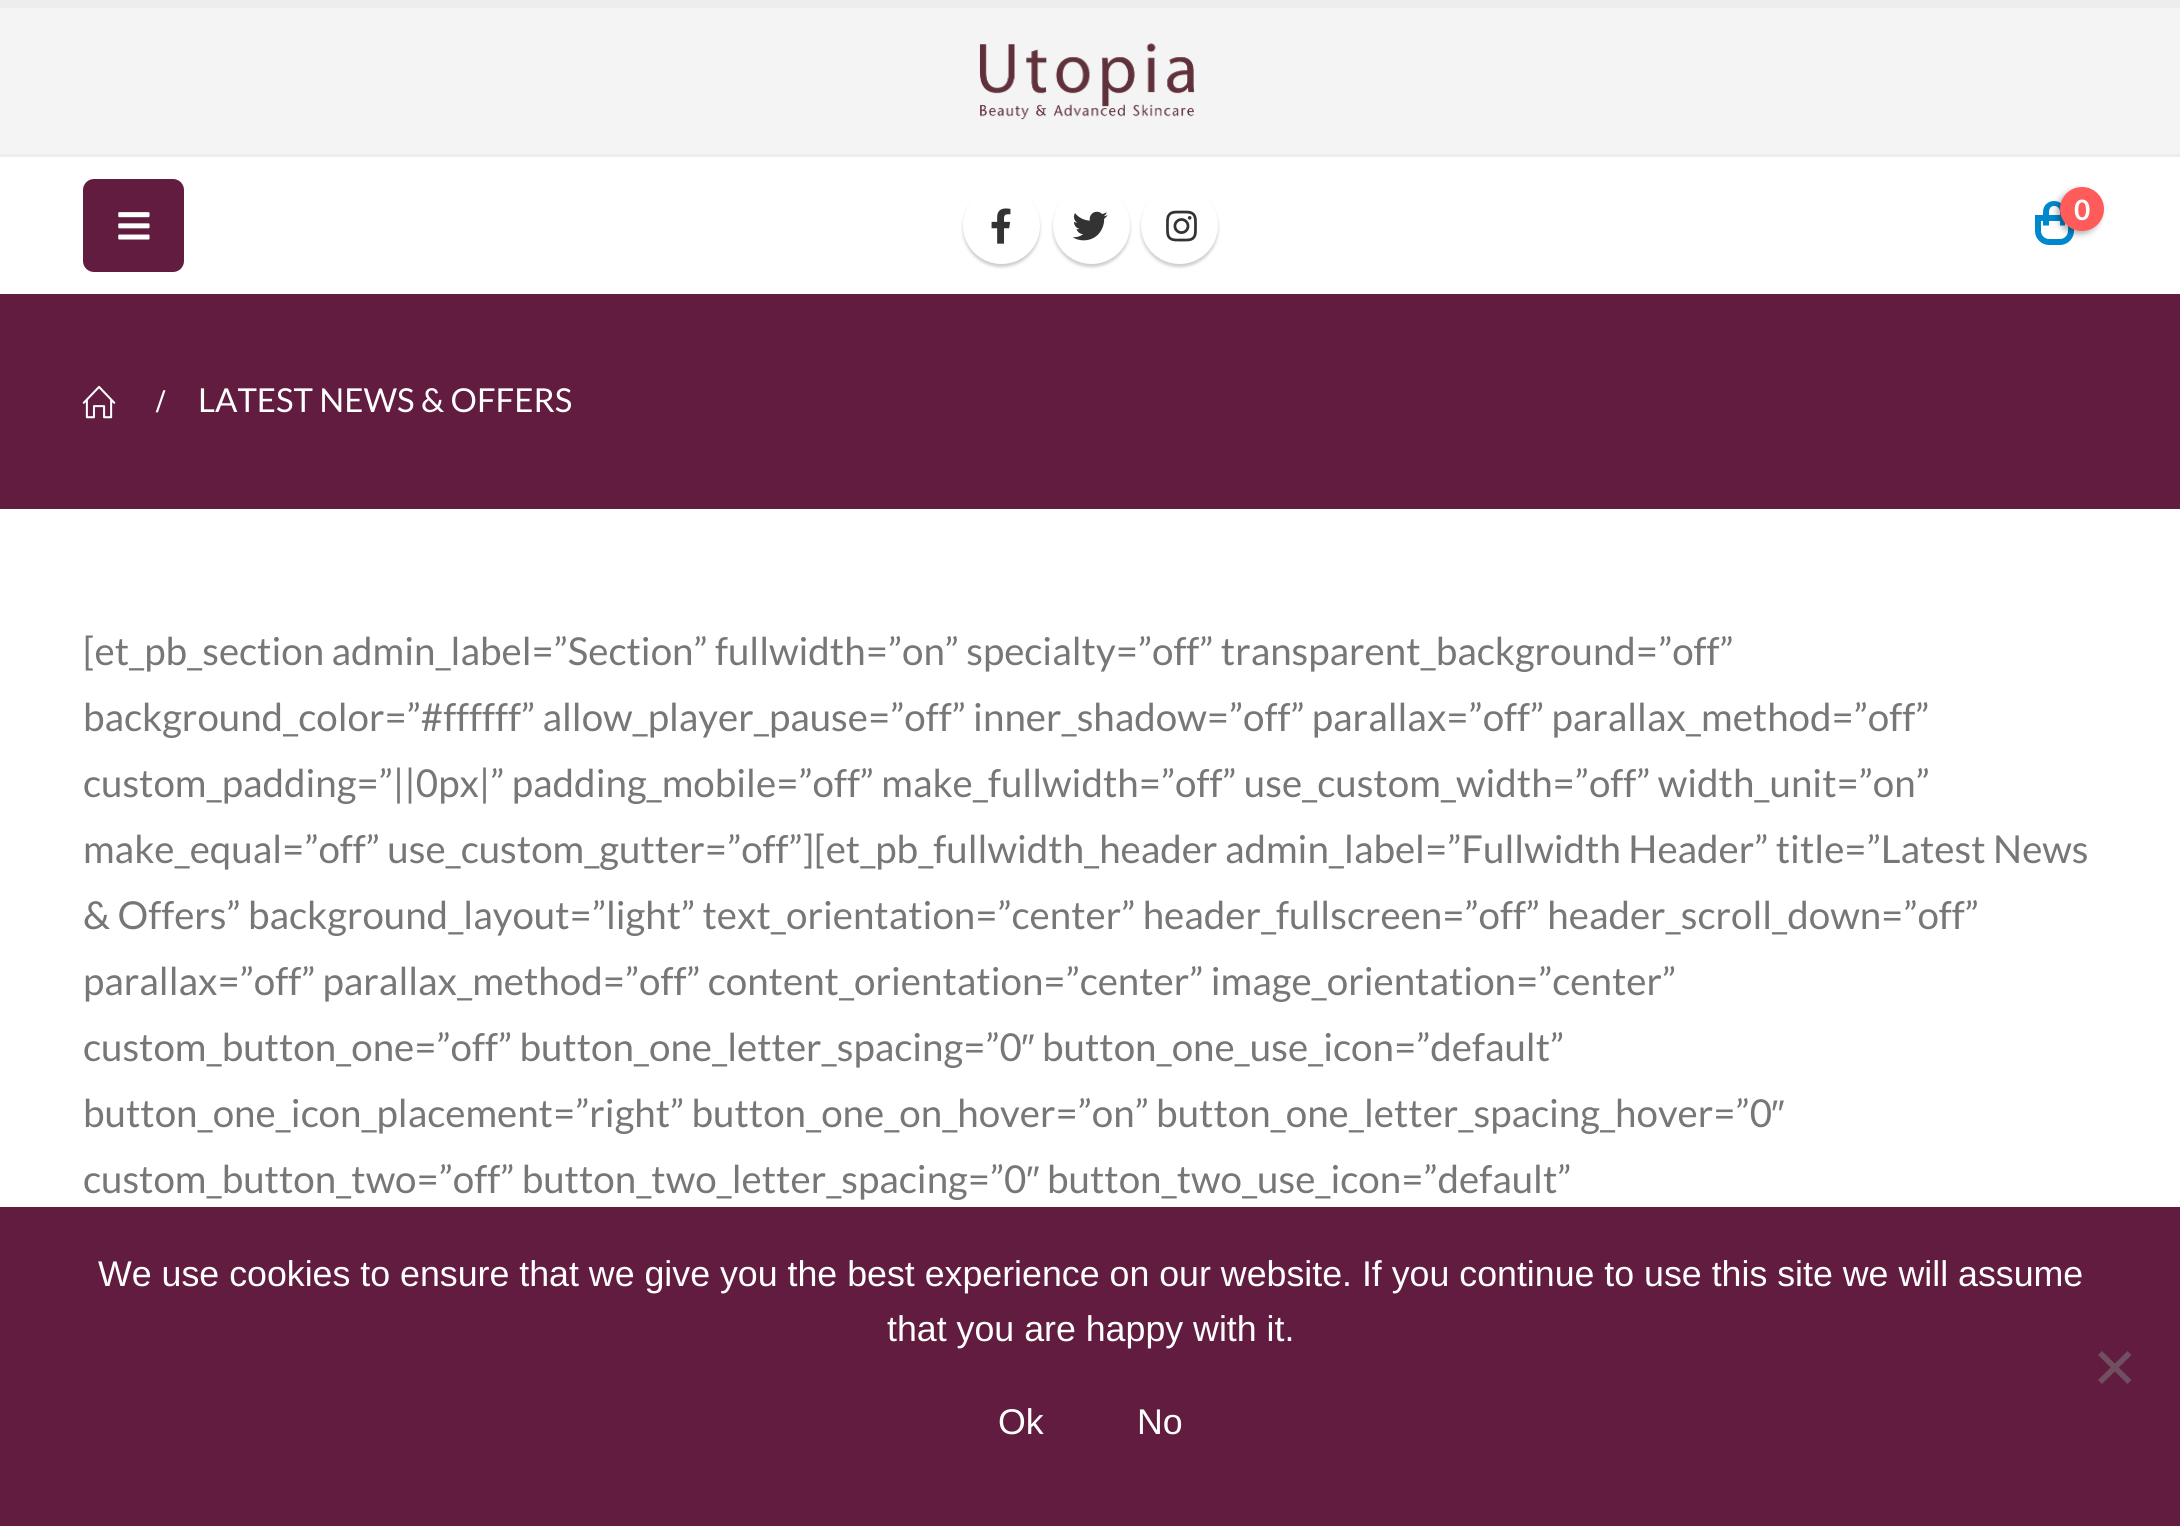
#include <cairo.h>
#include <math.h>
#include <stddef.h>


static void rgb(cairo_t *cr, int r, int g, int b)
{
	cairo_set_source_rgb(cr, r / 255.0, g / 255.0, b / 255.0);
}

static void face(cairo_t *cr, const char *family, double size, int italic, int bold)
{
	cairo_select_font_face(cr, family, italic ? CAIRO_FONT_SLANT_ITALIC : CAIRO_FONT_SLANT_NORMAL,
		bold ? CAIRO_FONT_WEIGHT_BOLD : CAIRO_FONT_WEIGHT_NORMAL);
	cairo_set_font_size(cr, size);
}

static void label(cairo_t *cr, double x, double y, const char *s)
{
	cairo_move_to(cr, x, y);
	cairo_show_text(cr, s);
}

static void rect(cairo_t *cr, double x, double y, double w, double h)
{
	cairo_rectangle(cr, x, y, w, h);
	cairo_fill(cr);
}

static void rrect(cairo_t *cr, double x, double y, double w, double h, double r)
{
	cairo_new_sub_path(cr);
	cairo_arc(cr, x + w - r, y + h - r, r, 0, M_PI / 2);
	cairo_arc(cr, x + r, y + h - r, r, M_PI / 2, M_PI);
	cairo_arc(cr, x + r, y + r, r, M_PI, 1.5 * M_PI);
	cairo_arc(cr, x + w - r, y + r, r, 1.5 * M_PI, 2 * M_PI);
	cairo_close_path(cr);
}

static void soft_shadow(cairo_t *cr, double x, double y, double w, double h, double r, double blur, double alpha)
{
	cairo_push_group_with_content(cr, CAIRO_CONTENT_ALPHA);
	cairo_set_operator(cr, CAIRO_OPERATOR_SOURCE);
	for (int i = 15; i >= -15 && fmin(w, h) + blur * i / 3 > 0; i -= 2) {
		double e = blur * i / 6;
		cairo_set_source_rgba(cr, 0, 0, 0, alpha * erfc((i - 1) / 8.5) / 2);
		rrect(cr, x - e, y - e, w + 2 * e, h + 2 * e, fmax(0, fmin(r + e + blur * .6, fmin(w, h) / 2 + e)));
		cairo_fill(cr);
	}
	cairo_pattern_t *soft = cairo_pop_group(cr);
	cairo_mask(cr, soft);
	cairo_pattern_destroy(soft);
}

static void image(cairo_t *cr, const char *path, double x, double y, double w, double h)
{
	cairo_surface_t *image = cairo_image_surface_create_from_png(path);
	cairo_save(cr);
	cairo_set_source_surface(cr, image, x, y);
	cairo_rectangle(cr, x, y, w, h);
	cairo_fill(cr);
	cairo_restore(cr);
	cairo_surface_destroy(image);
}

static void draw(cairo_t *cr) {
	rgb(cr, 255, 255, 255);
	cairo_paint(cr);
	rgb(cr, 237, 237, 237);
	rect(cr, 0, 0, 2180, 8);
	rgb(cr, 244, 244, 244);
	rect(cr, 0, 8, 2180, 146);
	rgb(cr, 237, 237, 237);
	rect(cr, 0, 154, 2180, 3);
	image(cr, "image0.png", 979, 43, 216, 77);
	rgb(cr, 97, 28, 63);
	rrect(cr, 83, 179, 101, 93, 11);
	cairo_fill(cr);
	image(cr, "image1.png", 118, 212, 32, 28);
	rgb(cr, 0, 0, 0);
	soft_shadow(cr, 963, 190, 77, 77, 38.5, 1.5, 0.2);
	rgb(cr, 255, 255, 255);
	cairo_arc(cr, 1001.5, 225.5, 38.5, 0, 2 * M_PI);
	cairo_fill(cr);
	image(cr, "image2.png", 991, 208, 20, 36);
	rgb(cr, 0, 0, 0);
	soft_shadow(cr, 1053, 190, 77, 77, 38.5, 1.5, 0.2);
	rgb(cr, 255, 255, 255);
	cairo_arc(cr, 1091.5, 225.5, 38.5, 0, 2 * M_PI);
	cairo_fill(cr);
	image(cr, "image3.png", 1072, 211, 36, 30);
	rgb(cr, 0, 0, 0);
	soft_shadow(cr, 1141, 190, 77, 77, 38.5, 1.5, 0.2);
	rgb(cr, 255, 255, 255);
	cairo_arc(cr, 1179.5, 225.5, 38.5, 0, 2 * M_PI);
	cairo_fill(cr);
	image(cr, "image4.png", 1166, 210, 31, 32);
	cairo_new_path(cr);
	cairo_move_to(cr, 2038, 218);
	cairo_line_to(cr, 2071, 218);
	cairo_line_to(cr, 2071, 231);
	cairo_curve_to(cr, 2071, 237, 2066, 242, 2060, 242);
	cairo_line_to(cr, 2049, 242);
	cairo_curve_to(cr, 2043, 242, 2038, 237, 2038, 231);
	cairo_close_path(cr);
	rgb(cr, 0, 136, 204);
	cairo_set_line_width(cr, 6);
	cairo_stroke(cr);
	cairo_set_fill_rule(cr, CAIRO_FILL_RULE_EVEN_ODD);
	cairo_new_path(cr);
	cairo_move_to(cr, 2054, 201);
	cairo_curve_to(cr, 2060.5, 201, 2065, 205.5, 2065, 212);
	cairo_line_to(cr, 2065, 225.5);
	cairo_line_to(cr, 2043, 225.5);
	cairo_line_to(cr, 2043, 212);
	cairo_curve_to(cr, 2043, 205.5, 2048, 201, 2054, 201);
	cairo_close_path(cr);
	cairo_move_to(cr, 2054, 206);
	cairo_curve_to(cr, 2057.5, 206, 2060, 208.5, 2060, 212);
	cairo_line_to(cr, 2060, 225.5);
	cairo_line_to(cr, 2049, 225.5);
	cairo_line_to(cr, 2049, 212);
	cairo_curve_to(cr, 2049, 208.5, 2051, 206, 2054, 206);
	cairo_close_path(cr);
	cairo_fill(cr);
	rgb(cr, 0, 0, 0);
	soft_shadow(cr, 2057, 190, 44, 44, 22, 3, 0.3);
	rgb(cr, 255, 91, 91);
	cairo_arc(cr, 2082, 209, 22, 0, 2 * M_PI);
	cairo_fill(cr);
	face(cr, "Lato", 28, 0, 1);
	rgb(cr, 255, 255, 255);
	label(cr, 2074, 220, "0");
	rgb(cr, 97, 28, 63);
	rect(cr, 0, 294, 2180, 215);
	image(cr, "image5.png", 82, 385, 34, 34);
	face(cr, "Liberation Serif", 33, 0, 1);
	rgb(cr, 255, 255, 255);
	label(cr, 156, 412, "/");
	face(cr, "Lato", 33, 0, 0);
	label(cr, 198, 412, "LATEST NEWS & OFFERS");
	face(cr, "Lato", 38.5, 0, 0);
	rgb(cr, 119, 119, 119);
	label(cr, 83, 665, "[et_pb_section admin_label=”Section” fullwidth=”on” specialty=”off” transparent_background=”off”");
	label(cr, 83, 731, "background_color=”#ffffff” allow_player_pause=”off” inner_shadow=”off” parallax=”off” parallax_method=”off”");
	label(cr, 83, 797, "custom_padding=”||0px|” padding_mobile=”off” make_fullwidth=”off” use_custom_width=”off” width_unit=”on”");
	label(cr, 83, 863, "make_equal=”off” use_custom_gutter=”off”][et_pb_fullwidth_header admin_label=”Fullwidth Header” title=”Latest News");
	label(cr, 83, 929, "& Offers” background_layout=”light” text_orientation=”center” header_fullscreen=”off” header_scroll_down=”off”");
	label(cr, 83, 995, "parallax=”off” parallax_method=”off” content_orientation=”center” image_orientation=”center”");
	label(cr, 83, 1061, "custom_button_one=”off” button_one_letter_spacing=”0");
	face(cr, "Liberation Sans", 38.5, 0, 0);
	label(cr, 1021, 1061, "″");
	face(cr, "Lato", 38.5, 0, 0);
	label(cr, 1042, 1061, "button_one_use_icon=”default”");
	label(cr, 83, 1127, "button_one_icon_placement=”right” button_one_on_hover=”on” button_one_letter_spacing_hover=”0");
	face(cr, "Liberation Sans", 38.5, 0, 0);
	label(cr, 1771, 1127, "″");
	face(cr, "Lato", 38.5, 0, 0);
	label(cr, 83, 1193, "custom_button_two=”off” button_two_letter_spacing=”0");
	face(cr, "Liberation Sans", 38.5, 0, 0);
	label(cr, 1026, 1193, "″");
	face(cr, "Lato", 38.5, 0, 0);
	label(cr, 1047, 1193, "button_two_use_icon=”default”");
	rgb(cr, 97, 28, 63);
	rect(cr, 0, 1207, 2180, 319);
	face(cr, "Liberation Sans", 35.75, 0, 0);
	rgb(cr, 255, 255, 255);
	label(cr, 98, 1286, "We use cookies to ensure that we give you the best experience on our website. If you continue to use this site we will assume");
	label(cr, 887, 1341, "that you are happy with it.");
	rgb(cr, 113, 78, 96);
	cairo_set_fill_rule(cr, CAIRO_FILL_RULE_WINDING);
	cairo_new_path(cr);
	cairo_move_to(cr, 2127.5, 1351);
	cairo_line_to(cr, 2131.5, 1355);
	cairo_line_to(cr, 2102, 1384);
	cairo_line_to(cr, 2098, 1380);
	cairo_close_path(cr);
	cairo_fill(cr);
	cairo_new_path(cr);
	cairo_move_to(cr, 2098, 1355);
	cairo_line_to(cr, 2102, 1351);
	cairo_line_to(cr, 2131.5, 1380);
	cairo_line_to(cr, 2127.5, 1384);
	cairo_close_path(cr);
	cairo_fill(cr);
	rgb(cr, 255, 255, 255);
	label(cr, 998, 1434, "Ok");
	label(cr, 1137, 1434, "No");
}

int main(void) {
	cairo_surface_t *surface = cairo_image_surface_create(CAIRO_FORMAT_RGB24, 2180, 1526);
	cairo_t *cr = cairo_create(surface);
	cairo_font_options_t *options = cairo_font_options_create();
	cairo_font_options_set_hint_metrics(options, CAIRO_HINT_METRICS_OFF);
	cairo_font_options_set_hint_style(options, CAIRO_HINT_STYLE_NONE);
	cairo_set_font_options(cr, options);
	cairo_set_miter_limit(cr, 4);
	draw(cr);
	cairo_surface_write_to_png(surface, "render.png");
	cairo_font_options_destroy(options);
	cairo_destroy(cr);
	cairo_surface_destroy(surface);
	return 0;
}
